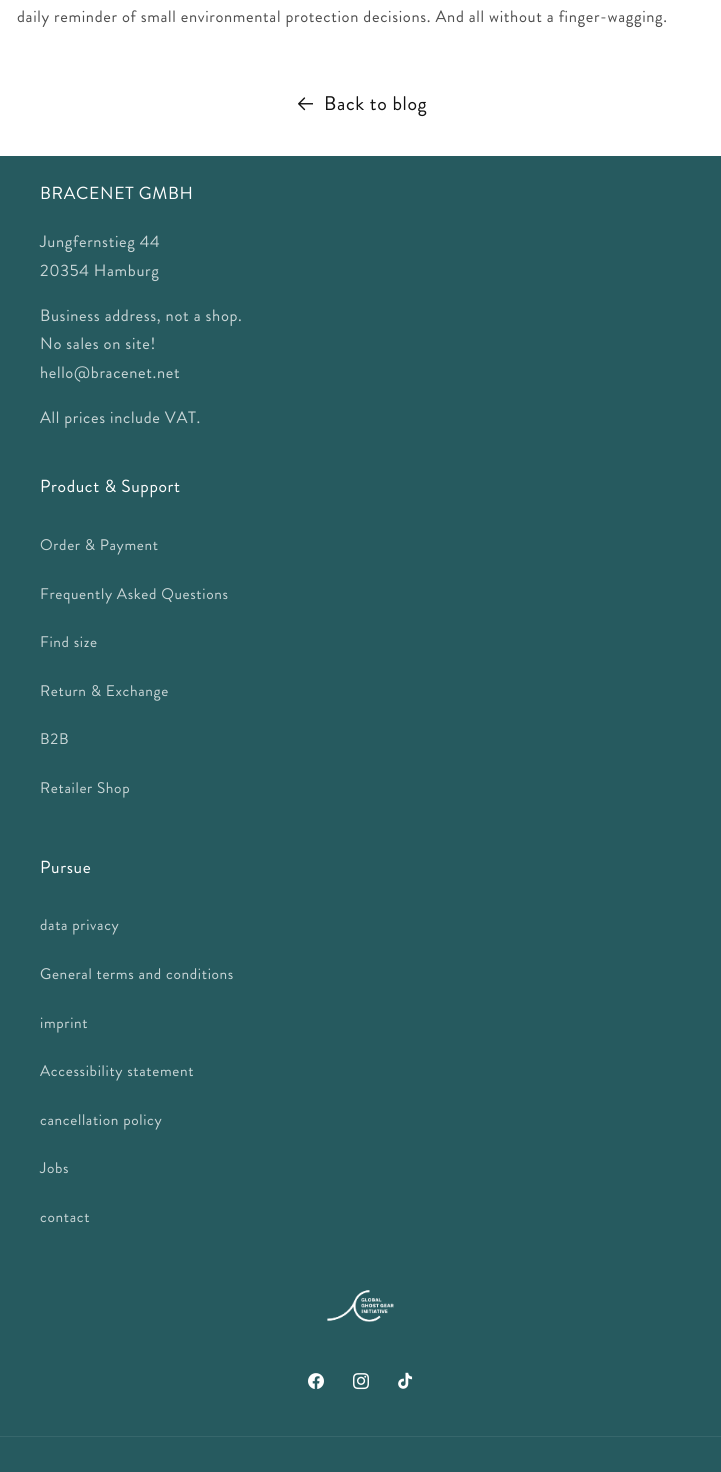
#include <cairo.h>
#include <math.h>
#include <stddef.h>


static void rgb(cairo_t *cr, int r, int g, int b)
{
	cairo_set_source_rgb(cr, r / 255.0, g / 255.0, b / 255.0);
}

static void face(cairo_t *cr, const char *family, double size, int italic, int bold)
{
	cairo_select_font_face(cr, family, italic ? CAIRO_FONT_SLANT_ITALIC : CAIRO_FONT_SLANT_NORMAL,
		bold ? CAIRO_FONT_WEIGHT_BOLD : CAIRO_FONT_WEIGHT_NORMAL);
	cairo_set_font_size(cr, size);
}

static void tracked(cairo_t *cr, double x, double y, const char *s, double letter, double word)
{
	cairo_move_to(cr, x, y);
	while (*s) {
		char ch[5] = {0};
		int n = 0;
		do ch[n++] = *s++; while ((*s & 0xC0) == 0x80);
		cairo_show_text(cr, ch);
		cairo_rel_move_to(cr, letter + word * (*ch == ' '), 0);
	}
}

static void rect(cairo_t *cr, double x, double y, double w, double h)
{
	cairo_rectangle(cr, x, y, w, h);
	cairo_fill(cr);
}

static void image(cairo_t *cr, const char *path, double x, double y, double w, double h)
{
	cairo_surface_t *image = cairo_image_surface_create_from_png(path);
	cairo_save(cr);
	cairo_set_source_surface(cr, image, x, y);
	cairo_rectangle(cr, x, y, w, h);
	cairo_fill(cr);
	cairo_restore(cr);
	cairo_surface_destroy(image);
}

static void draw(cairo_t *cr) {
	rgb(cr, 255, 255, 255);
	cairo_paint(cr);
	face(cr, "Brandon Grotesque", 16.5, 0, 0);
	rgb(cr, 77, 77, 77);
	tracked(cr, 17, 22, "daily reminder of small environmental protection decisions. And all without a finger-wagging.", 0.65, 0);
	image(cr, "image0.png", 298, 97, 15, 14);
	face(cr, "Brandon Grotesque", 19.75, 0, 0);
	rgb(cr, 18, 18, 18);
	tracked(cr, 324, 110, "Back to blog", 0.65, 0);
	rgb(cr, 38, 90, 95);
	rect(cr, 0, 156, 721, 1316);
	face(cr, "Brandon Grotesque", 17.5, 0, 0);
	rgb(cr, 255, 255, 255);
	tracked(cr, 40, 199, "BRACENET GMBH", 0.65, 0);
	face(cr, "Brandon Grotesque", 16.5, 0, 0);
	rgb(cr, 201, 214, 215);
	tracked(cr, 40, 247, "Jungfernstieg 44", 0.65, 0);
	tracked(cr, 40, 276, "20354 Hamburg", 0.65, 0);
	tracked(cr, 40, 321, "Business address, not a shop.", 0.65, 0);
	tracked(cr, 40, 349, "No sales on site!", 0.65, 0);
	tracked(cr, 40, 378, "hello@bracenet.net", 0.65, 0);
	tracked(cr, 40, 423, "All prices include VAT.", 0.65, 0);
	face(cr, "Brandon Grotesque", 17.5, 0, 0);
	rgb(cr, 255, 255, 255);
	tracked(cr, 40, 492, "Product & Support", 0.65, 0);
	face(cr, "Brandon Grotesque", 15.4, 0, 0);
	rgb(cr, 201, 214, 215);
	tracked(cr, 40, 550, "Order & Payment", 0.65, 0);
	tracked(cr, 40, 599, "Frequently Asked Questions", 0.65, 0);
	tracked(cr, 40, 647, "Find size", 0.65, 0);
	tracked(cr, 40, 696, "Return & Exchange", 0.65, 0);
	tracked(cr, 40, 744, "B2B", 0.65, 0);
	tracked(cr, 40, 793, "Retailer Shop", 0.65, 0);
	face(cr, "Brandon Grotesque", 17.5, 0, 0);
	rgb(cr, 255, 255, 255);
	tracked(cr, 40, 873, "Pursue", 0.65, 0);
	face(cr, "Brandon Grotesque", 15.4, 0, 0);
	rgb(cr, 201, 214, 215);
	tracked(cr, 40, 930, "data privacy", 0.65, 0);
	tracked(cr, 40, 979, "General terms and conditions", 0.65, 0);
	tracked(cr, 40, 1028, "imprint", 0.65, 0);
	tracked(cr, 40, 1076, "Accessibility statement", 0.65, 0);
	tracked(cr, 40, 1125, "cancellation policy", 0.65, 0);
	tracked(cr, 40, 1173, "Jobs", 0.65, 0);
	tracked(cr, 40, 1222, "contact", 0.65, 0);
	image(cr, "image1.png", 327, 1290, 67, 32);
	image(cr, "image2.png", 308, 1373, 16, 16);
	image(cr, "image3.png", 353, 1373, 16, 17);
	image(cr, "image4.png", 398, 1372, 15, 17);
	rgb(cr, 55, 103, 108);
	rect(cr, 0, 1436, 721, 1);
}

int main(void) {
	cairo_surface_t *surface = cairo_image_surface_create(CAIRO_FORMAT_RGB24, 721, 1472);
	cairo_t *cr = cairo_create(surface);
	cairo_font_options_t *options = cairo_font_options_create();
	cairo_font_options_set_hint_metrics(options, CAIRO_HINT_METRICS_OFF);
	cairo_font_options_set_hint_style(options, CAIRO_HINT_STYLE_NONE);
	cairo_set_font_options(cr, options);
	cairo_set_miter_limit(cr, 4);
	draw(cr);
	cairo_surface_write_to_png(surface, "render.png");
	cairo_font_options_destroy(options);
	cairo_destroy(cr);
	cairo_surface_destroy(surface);
	return 0;
}
